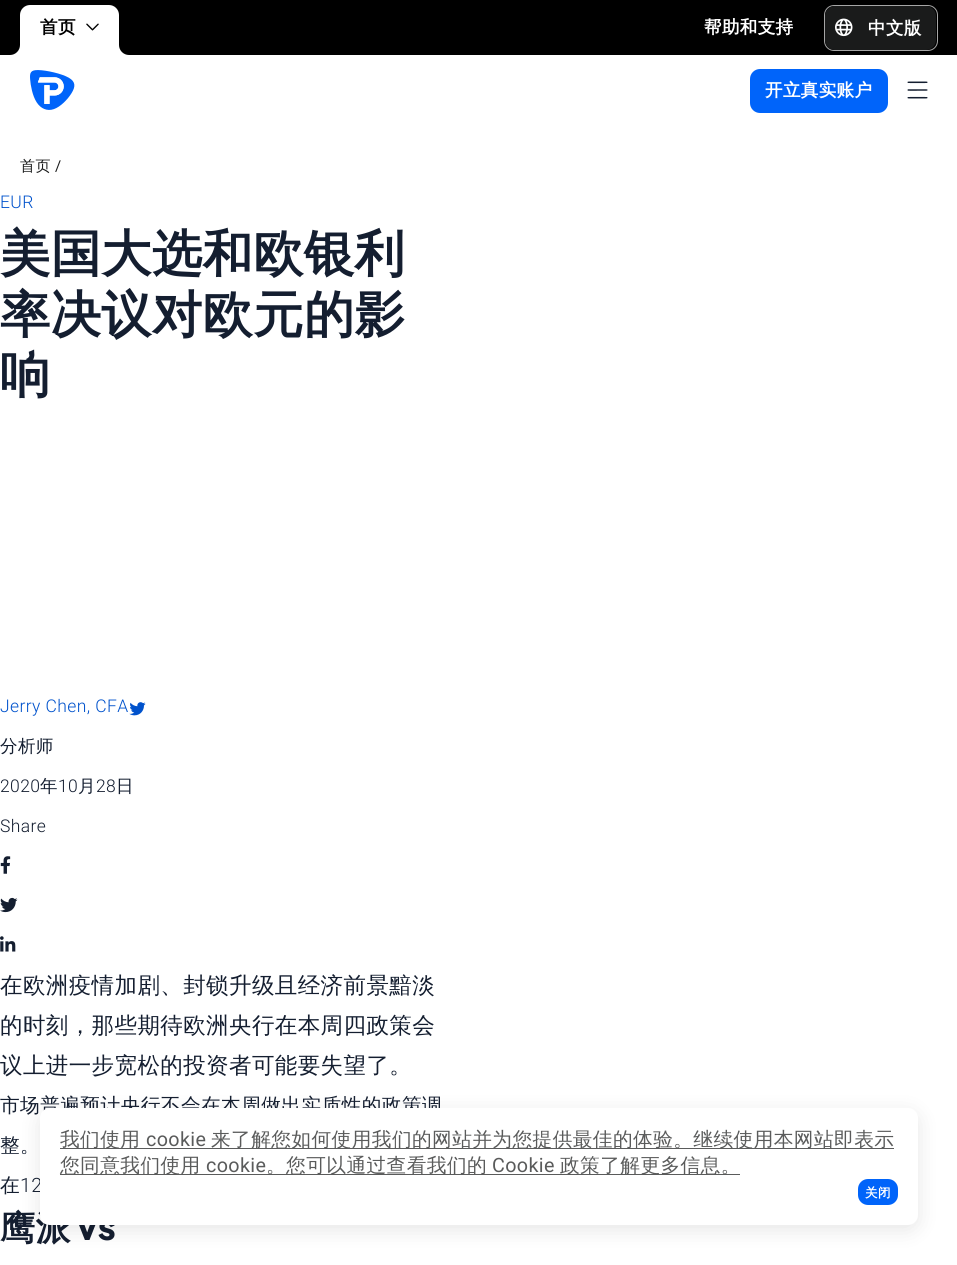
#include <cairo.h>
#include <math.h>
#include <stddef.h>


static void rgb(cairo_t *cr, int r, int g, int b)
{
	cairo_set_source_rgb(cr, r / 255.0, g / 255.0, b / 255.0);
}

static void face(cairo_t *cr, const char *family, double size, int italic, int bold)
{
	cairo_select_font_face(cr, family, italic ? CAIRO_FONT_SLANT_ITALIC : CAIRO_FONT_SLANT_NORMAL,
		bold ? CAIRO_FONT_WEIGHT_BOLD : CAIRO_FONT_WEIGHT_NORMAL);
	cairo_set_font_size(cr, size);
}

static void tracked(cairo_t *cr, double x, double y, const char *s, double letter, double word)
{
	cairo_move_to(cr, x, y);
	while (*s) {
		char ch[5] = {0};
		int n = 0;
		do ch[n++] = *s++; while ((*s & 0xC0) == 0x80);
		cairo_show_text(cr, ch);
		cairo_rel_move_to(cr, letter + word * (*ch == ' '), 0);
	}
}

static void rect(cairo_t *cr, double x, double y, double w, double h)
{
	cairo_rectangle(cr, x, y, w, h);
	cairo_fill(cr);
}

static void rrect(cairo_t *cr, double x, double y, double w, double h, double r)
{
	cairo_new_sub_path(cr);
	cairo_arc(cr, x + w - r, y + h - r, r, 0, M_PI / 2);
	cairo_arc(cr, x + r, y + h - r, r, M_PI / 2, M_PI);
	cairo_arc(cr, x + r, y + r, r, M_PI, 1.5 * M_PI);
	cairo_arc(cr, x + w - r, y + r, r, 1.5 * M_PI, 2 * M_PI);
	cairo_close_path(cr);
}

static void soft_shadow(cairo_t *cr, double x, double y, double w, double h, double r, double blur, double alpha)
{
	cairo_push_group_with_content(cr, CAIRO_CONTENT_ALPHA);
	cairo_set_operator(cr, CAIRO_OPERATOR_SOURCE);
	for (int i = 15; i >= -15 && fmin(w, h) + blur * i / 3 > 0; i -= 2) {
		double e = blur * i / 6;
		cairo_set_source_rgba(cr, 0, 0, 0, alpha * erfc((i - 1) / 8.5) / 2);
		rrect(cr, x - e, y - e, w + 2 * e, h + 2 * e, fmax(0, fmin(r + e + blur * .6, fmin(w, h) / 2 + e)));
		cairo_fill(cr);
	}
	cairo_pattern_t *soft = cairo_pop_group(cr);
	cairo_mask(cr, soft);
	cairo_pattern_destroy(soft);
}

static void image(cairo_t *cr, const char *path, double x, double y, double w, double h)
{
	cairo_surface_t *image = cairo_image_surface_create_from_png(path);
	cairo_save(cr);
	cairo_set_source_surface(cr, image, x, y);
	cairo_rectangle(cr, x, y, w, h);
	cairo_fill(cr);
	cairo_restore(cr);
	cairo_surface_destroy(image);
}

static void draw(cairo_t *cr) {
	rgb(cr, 255, 255, 255);
	cairo_paint(cr);
	rgb(cr, 0, 0, 0);
	rect(cr, 0, 0, 957, 55);
	rgb(cr, 255, 255, 255);
	cairo_new_path(cr);
	cairo_move_to(cr, 30, 5);
	cairo_line_to(cr, 109, 5);
	cairo_curve_to(cr, 114.5, 5, 119, 9.5, 119, 15);
	cairo_line_to(cr, 119, 55);
	cairo_line_to(cr, 20, 55);
	cairo_line_to(cr, 20, 15);
	cairo_curve_to(cr, 20, 9.5, 24.5, 5, 30, 5);
	cairo_close_path(cr);
	cairo_fill(cr);
	face(cr, "WenQuanYi Zen Hei", 17.5, 0, 1);
	rgb(cr, 0, 0, 0);
	tracked(cr, 40, 33, "首页", 0.4, 0);
	image(cr, "image0.png", 86, 23, 13, 8);
	rgb(cr, 255, 255, 255);
	rect(cr, 10, 45, 10, 10);
	rgb(cr, 0, 0, 0);
	cairo_new_path(cr);
	cairo_move_to(cr, 10, 35);
	cairo_curve_to(cr, 15.5, 35, 20, 39.5, 20, 45);
	cairo_curve_to(cr, 20, 50.5, 15.5, 55, 10, 55);
	cairo_close_path(cr);
	cairo_fill(cr);
	rgb(cr, 255, 255, 255);
	rect(cr, 119, 45, 10, 10);
	rgb(cr, 0, 0, 0);
	cairo_new_path(cr);
	cairo_move_to(cr, 129, 35);
	cairo_line_to(cr, 129, 55);
	cairo_curve_to(cr, 123.5, 55, 119, 50.5, 119, 45);
	cairo_curve_to(cr, 119, 39.5, 123.5, 35, 129, 35);
	cairo_close_path(cr);
	cairo_fill(cr);
	rgb(cr, 255, 255, 255);
	tracked(cr, 704, 33, "帮助和支持", 0.4, 0);
	rrect(cr, 824.5, 5.5, 113, 45, 9.5);
	rgb(cr, 166, 166, 166);
	cairo_set_line_width(cr, 1);
	cairo_stroke(cr);
	rgb(cr, 26, 27, 27);
	rrect(cr, 825, 6, 111, 44, 10);
	cairo_fill(cr);
	image(cr, "image1.png", 835, 18, 18, 19);
	rgb(cr, 255, 255, 255);
	tracked(cr, 868, 34, "中文版", 0.4, 0);
	image(cr, "image2.png", 30, 70, 45, 40);
	rgb(cr, 0, 100, 250);
	rrect(cr, 750, 69, 138, 44, 10);
	cairo_fill(cr);
	rgb(cr, 255, 255, 255);
	tracked(cr, 765, 96, "开立真实账户", 0.4, 0);
	image(cr, "image3.png", 907, 81, 21, 18);
	face(cr, "WenQuanYi Zen Hei Medium", 15, 0, 0);
	rgb(cr, 26, 27, 27);
	tracked(cr, 20, 171, "首页", 0.4, 0);
	face(cr, "Roboto", 15, 0, 0);
	tracked(cr, 55, 171, "/", 0.4, 0);
	face(cr, "Roboto Light", 17.5, 0, 0);
	rgb(cr, 0, 82, 204);
	tracked(cr, 0, 208, "EUR", 0.4, 0);
	face(cr, "WenQuanYi Zen Hei", 50.25, 0, 1);
	rgb(cr, 20, 30, 48);
	tracked(cr, 0, 271, "美国大选和欧银利", 0.4, 0);
	tracked(cr, 0, 332, "率决议对欧元的影", 0.4, 0);
	tracked(cr, 0, 392, "响", 0.4, 0);
	face(cr, "Roboto Light", 17.5, 0, 0);
	rgb(cr, 0, 82, 204);
	tracked(cr, 0, 712, "Jerry Chen, CFA", 0.4, 0);
	image(cr, "image4.png", 129, 702, 17, 14);
	face(cr, "WenQuanYi Zen Hei Medium", 17.5, 0, 0);
	rgb(cr, 20, 30, 48);
	tracked(cr, 0, 752, "分析师", 0.4, 0);
	face(cr, "Roboto Light", 17.5, 0, 0);
	tracked(cr, 0, 792, "2020", 0.4, 0);
	face(cr, "WenQuanYi Zen Hei Medium", 17.5, 0, 0);
	tracked(cr, 40, 792, "年", 0.4, 0);
	face(cr, "Roboto Light", 17.5, 0, 0);
	tracked(cr, 58, 792, "10", 0.4, 0);
	face(cr, "WenQuanYi Zen Hei Medium", 17.5, 0, 0);
	tracked(cr, 78, 792, "月", 0.4, 0);
	face(cr, "Roboto Light", 17.5, 0, 0);
	tracked(cr, 96, 792, "28", 0.4, 0);
	face(cr, "WenQuanYi Zen Hei Medium", 17.5, 0, 0);
	tracked(cr, 116, 792, "日", 0.4, 0);
	face(cr, "Roboto Light", 17.5, 0, 0);
	tracked(cr, 0, 832, "Share", 0.4, 0);
	image(cr, "image5.png", 0, 856, 11, 18);
	image(cr, "image6.png", 0, 897, 18, 16);
	image(cr, "image7.png", 0, 936, 16, 16);
	face(cr, "WenQuanYi Zen Hei Medium", 22.5, 0, 0);
	tracked(cr, 0, 993, "在欧洲疫情加剧、封锁升级且经济前景黯淡", 0.4, 0);
	tracked(cr, 0, 1033, "的时刻，那些期待欧洲央行在本周四政策会", 0.4, 0);
	tracked(cr, 0, 1073, "议上进一步宽松的投资者可能要失望了。", 0.4, 0);
	face(cr, "WenQuanYi Zen Hei Medium", 19.7, 0, 0);
	tracked(cr, 0, 1112, "市场普遍预计央行不会在本周做出实质性的政策调", 0.4, 0);
	tracked(cr, 0, 1152, "整。", 0.4, 0);
	tracked(cr, 0, 1192, "在", 0.4, 0);
	face(cr, "Roboto Light", 19.7, 0, 0);
	tracked(cr, 20, 1192, "12", 0.4, 0);
	face(cr, "WenQuanYi Zen Hei", 35, 0, 1);
	tracked(cr, 0, 1240, "鹰派", 0.4, 0);
	face(cr, "Plus Jakarta Sans ExtraBold", 35, 0, 0);
	tracked(cr, 77, 1240, "vs", 0.4, 0);
	rgb(cr, 0, 0, 0);
	soft_shadow(cr, 40, 1113, 878, 117, 10, 10, 0.1);
	rgb(cr, 255, 255, 255);
	rrect(cr, 40, 1108, 878, 117, 10);
	cairo_fill(cr);
	rgb(cr, 90, 91, 91);
	rect(cr, 60, 1148, 834, 1);
	face(cr, "WenQuanYi Zen Hei Medium", 19.7, 0, 0);
	tracked(cr, 60, 1146, "我们使用", 0.4, 0);
	face(cr, "Roboto", 19.7, 0, 0);
	tracked(cr, 146, 1146, "cookie", 0.4, 0);
	face(cr, "WenQuanYi Zen Hei Medium", 19.7, 0, 0);
	tracked(cr, 211, 1146, "来了解您如何使用我们的网站并为您提供最佳的体验。继续使用本网站即表示", 0.4, 0);
	rect(cr, 60, 1174, 680, 1);
	tracked(cr, 60, 1172, "您同意我们使用", 0.4, 0);
	face(cr, "Roboto", 19.7, 0, 0);
	tracked(cr, 206, 1172, "cookie", 0.4, 0);
	face(cr, "WenQuanYi Zen Hei Medium", 19.7, 0, 0);
	tracked(cr, 266, 1172, "。您可以通过查看我们的", 0.4, 0);
	face(cr, "Roboto", 19.7, 0, 0);
	tracked(cr, 492, 1172, "Cookie", 0.4, 0);
	face(cr, "WenQuanYi Zen Hei Medium", 19.7, 0, 0);
	tracked(cr, 560, 1172, "政策了解更多信息。", 0.4, 0);
	rgb(cr, 0, 100, 250);
	rrect(cr, 858, 1179, 40, 26, 10);
	cairo_fill(cr);
	face(cr, "WenQuanYi Zen Hei", 12.5, 0, 1);
	rgb(cr, 255, 255, 255);
	tracked(cr, 865, 1197, "关闭", 0.4, 0);
}

int main(void) {
	cairo_surface_t *surface = cairo_image_surface_create(CAIRO_FORMAT_RGB24, 957, 1265);
	cairo_t *cr = cairo_create(surface);
	cairo_font_options_t *options = cairo_font_options_create();
	cairo_font_options_set_hint_metrics(options, CAIRO_HINT_METRICS_OFF);
	cairo_font_options_set_hint_style(options, CAIRO_HINT_STYLE_NONE);
	cairo_set_font_options(cr, options);
	cairo_set_miter_limit(cr, 4);
	draw(cr);
	cairo_surface_write_to_png(surface, "render.png");
	cairo_font_options_destroy(options);
	cairo_destroy(cr);
	cairo_surface_destroy(surface);
	return 0;
}
